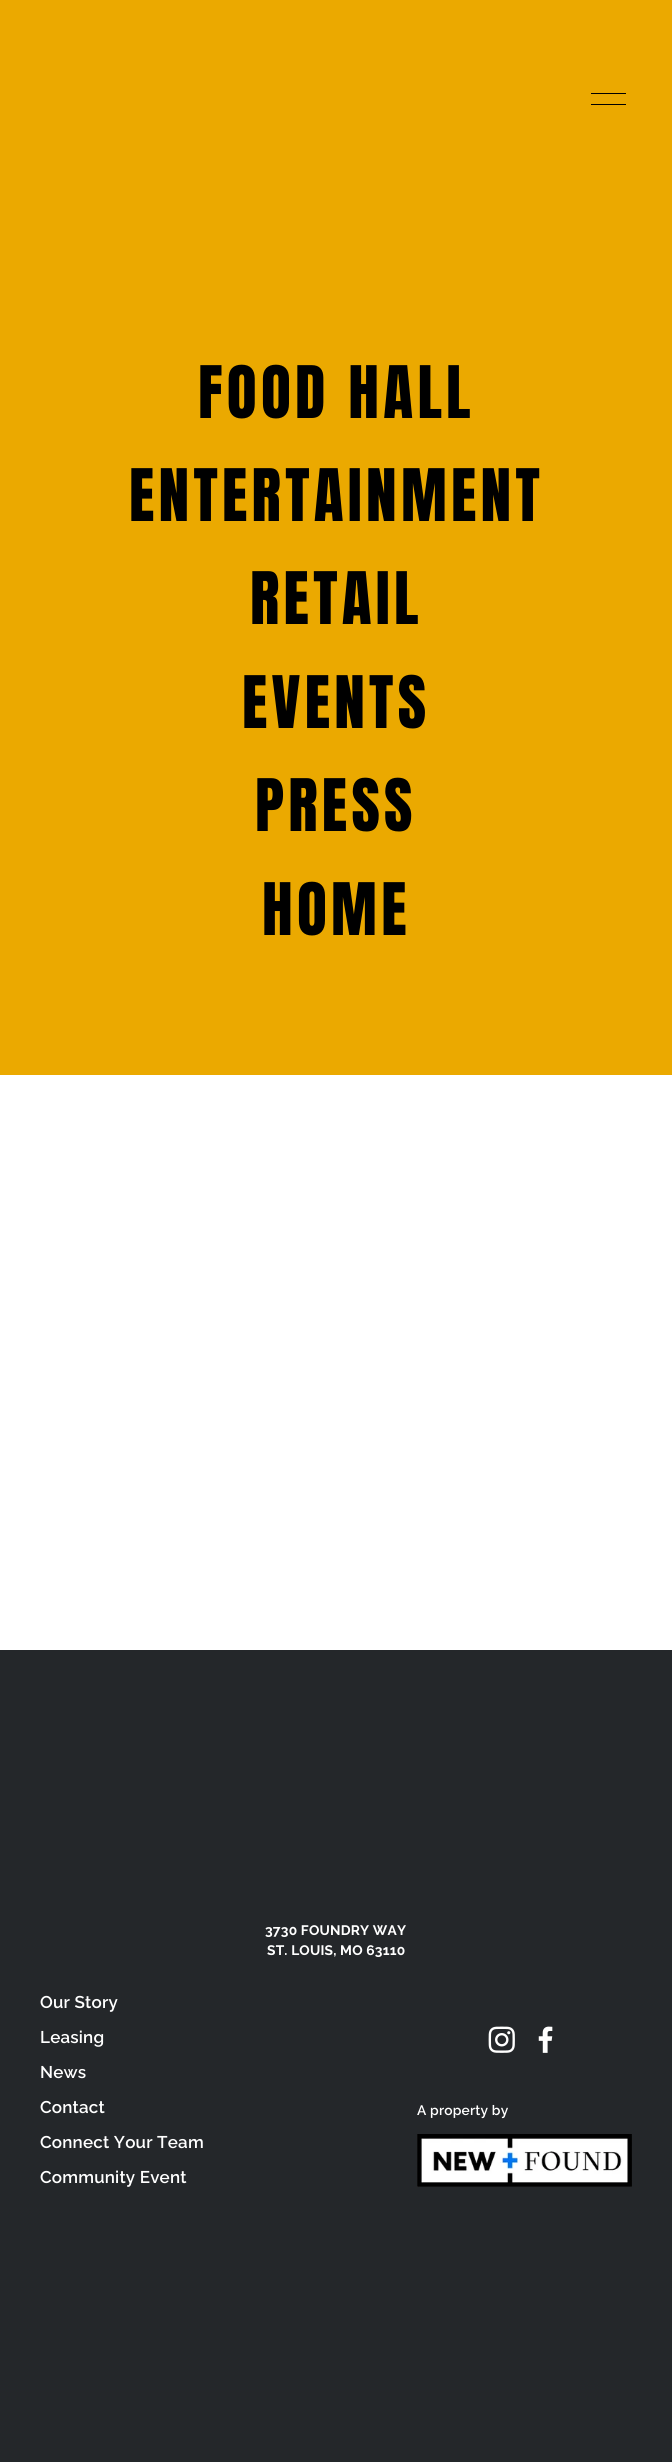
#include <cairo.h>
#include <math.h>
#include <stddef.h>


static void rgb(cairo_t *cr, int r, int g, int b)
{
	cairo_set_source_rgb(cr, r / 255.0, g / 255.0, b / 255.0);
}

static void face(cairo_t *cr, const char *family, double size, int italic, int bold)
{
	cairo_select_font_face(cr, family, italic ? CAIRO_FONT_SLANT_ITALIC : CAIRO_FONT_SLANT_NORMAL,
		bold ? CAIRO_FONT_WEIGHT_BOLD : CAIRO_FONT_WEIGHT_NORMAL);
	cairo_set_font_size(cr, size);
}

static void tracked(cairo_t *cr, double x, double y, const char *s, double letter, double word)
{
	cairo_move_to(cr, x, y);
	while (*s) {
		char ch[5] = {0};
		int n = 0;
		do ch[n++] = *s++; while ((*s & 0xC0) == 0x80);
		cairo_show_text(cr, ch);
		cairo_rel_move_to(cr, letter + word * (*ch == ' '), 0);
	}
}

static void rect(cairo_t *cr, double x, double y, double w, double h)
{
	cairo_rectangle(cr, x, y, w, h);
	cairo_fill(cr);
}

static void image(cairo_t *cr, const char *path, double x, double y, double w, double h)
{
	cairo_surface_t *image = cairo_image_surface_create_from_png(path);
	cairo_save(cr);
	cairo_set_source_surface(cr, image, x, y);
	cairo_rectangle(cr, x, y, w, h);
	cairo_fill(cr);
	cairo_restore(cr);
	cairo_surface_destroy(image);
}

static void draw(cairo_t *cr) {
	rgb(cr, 255, 255, 255);
	cairo_paint(cr);
	rgb(cr, 235, 169, 0);
	rect(cr, 0, 0, 672, 1075);
	rgb(cr, 0, 0, 0);
	rect(cr, 591, 93, 35, 1);
	rect(cr, 591, 104, 35, 1);
	face(cr, "Anton", 61.5, 0, 0);
	tracked(cr, 198, 418, "FOOD HALL", 4.25, 0);
	tracked(cr, 129, 521, "ENTERTAINMENT", 4.25, 0);
	tracked(cr, 250, 624, "RETAIL", 4.25, 0);
	tracked(cr, 242, 728, "EVENTS", 4.25, 0);
	tracked(cr, 255, 831, "PRESS", 4.25, 0);
	tracked(cr, 262, 935, "HOME", 4.25, 0);
	rgb(cr, 36, 39, 42);
	rect(cr, 0, 1650, 672, 812);
	face(cr, "Raleway", 13.75, 0, 1);
	rgb(cr, 255, 255, 255);
	tracked(cr, 265, 1935, "3730 FOUNDRY WAY", 0.2, 0);
	tracked(cr, 267, 1955, "ST. LOUIS, MO 63110", 0.2, 0);
	face(cr, "Raleway SemiBold", 17, 0, 0);
	tracked(cr, 40, 2008, "Our Story", 0.2, 0);
	tracked(cr, 40, 2043, "Leasing", 0.2, 0);
	image(cr, "image0.png", 488, 2026, 27, 27);
	image(cr, "image1.png", 538, 2026, 15, 27);
	tracked(cr, 40, 2078, "News", 0.2, 0);
	tracked(cr, 40, 2113, "Contact", 0.2, 0);
	face(cr, "Raleway SemiBold", 13.75, 0, 0);
	tracked(cr, 417, 2115, "A property by", 0.2, 0);
	face(cr, "Raleway SemiBold", 17, 0, 0);
	tracked(cr, 40, 2148, "Connect Your Team", 0.2, 0);
	image(cr, "image2.png", 417, 2134, 215, 53);
	tracked(cr, 40, 2183, "Community Event", 0.2, 0);
}

int main(void) {
	cairo_surface_t *surface = cairo_image_surface_create(CAIRO_FORMAT_RGB24, 672, 2462);
	cairo_t *cr = cairo_create(surface);
	cairo_font_options_t *options = cairo_font_options_create();
	cairo_font_options_set_hint_metrics(options, CAIRO_HINT_METRICS_OFF);
	cairo_font_options_set_hint_style(options, CAIRO_HINT_STYLE_NONE);
	cairo_set_font_options(cr, options);
	cairo_set_miter_limit(cr, 4);
	draw(cr);
	cairo_surface_write_to_png(surface, "render.png");
	cairo_font_options_destroy(options);
	cairo_destroy(cr);
	cairo_surface_destroy(surface);
	return 0;
}
